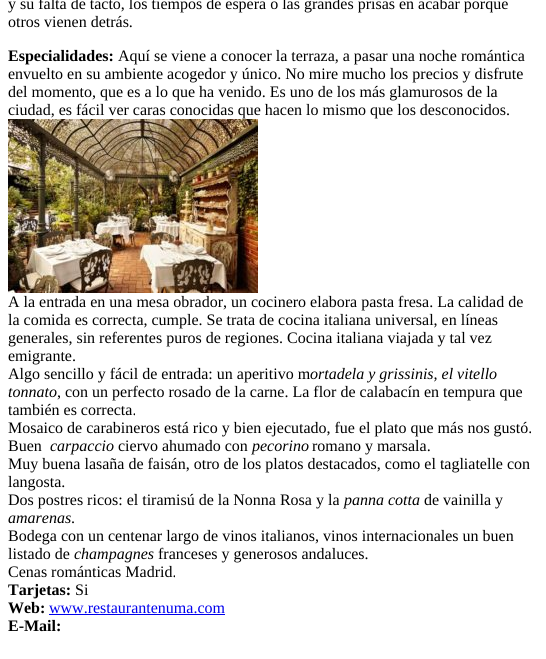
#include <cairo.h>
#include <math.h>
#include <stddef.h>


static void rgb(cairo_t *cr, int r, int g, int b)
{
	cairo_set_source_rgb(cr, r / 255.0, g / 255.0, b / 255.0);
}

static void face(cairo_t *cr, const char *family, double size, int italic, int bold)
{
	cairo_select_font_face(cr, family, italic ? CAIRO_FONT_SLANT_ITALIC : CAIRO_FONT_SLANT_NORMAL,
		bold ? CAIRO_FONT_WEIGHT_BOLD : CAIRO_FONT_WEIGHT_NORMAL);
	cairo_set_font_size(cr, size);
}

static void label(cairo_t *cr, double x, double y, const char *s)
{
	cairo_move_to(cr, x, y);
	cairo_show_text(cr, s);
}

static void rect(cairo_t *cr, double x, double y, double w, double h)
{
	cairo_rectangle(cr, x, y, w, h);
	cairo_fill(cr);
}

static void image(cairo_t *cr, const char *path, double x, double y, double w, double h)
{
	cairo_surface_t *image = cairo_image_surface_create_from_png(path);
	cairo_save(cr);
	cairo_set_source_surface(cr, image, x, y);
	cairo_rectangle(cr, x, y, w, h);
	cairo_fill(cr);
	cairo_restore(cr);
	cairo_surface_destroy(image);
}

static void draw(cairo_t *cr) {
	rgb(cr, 255, 255, 255);
	cairo_paint(cr);
	face(cr, "Liberation Serif", 16, 0, 0);
	rgb(cr, 0, 0, 0);
	label(cr, 8, 9, "y su falta de tacto, los tiempos de espera o las grandes prisas en acabar porque");
	label(cr, 8, 27, "otros vienen detrás.");
	face(cr, "Liberation Serif", 16, 0, 1);
	label(cr, 8, 61, "Especialidades:");
	face(cr, "Liberation Serif", 16, 0, 0);
	label(cr, 118, 61, "Aquí se viene a conocer la terraza, a pasar una noche romántica");
	label(cr, 8, 79, "envuelto en su ambiente acogedor y único. No mire mucho los precios y disfrute");
	label(cr, 8, 97, "del momento, que es a lo que ha venido. Es uno de los más glamurosos de la");
	label(cr, 8, 115, "ciudad, es fácil ver caras conocidas que hacen lo mismo que los desconocidos.");
	image(cr, "image0.png", 8, 119, 250, 174);
	label(cr, 8, 307, "A la entrada en una mesa obrador, un cocinero elabora pasta fresa. La calidad de");
	label(cr, 8, 325, "la comida es correcta, cumple. Se trata de cocina italiana universal, en líneas");
	label(cr, 8, 343, "generales, sin referentes puros de regiones. Cocina italiana viajada y tal vez");
	label(cr, 8, 361, "emigrante.");
	label(cr, 8, 379, "Algo sencillo y fácil de entrada: un aperitivo m");
	face(cr, "Liberation Serif", 16, 1, 0);
	label(cr, 310, 379, "ortadela y grissinis, el vitello");
	label(cr, 8, 397, "tonnato");
	face(cr, "Liberation Serif", 16, 0, 0);
	label(cr, 57, 397, ", con un perfecto rosado de la carne. La flor de calabacín en tempura que");
	label(cr, 8, 415, "también es correcta.");
	label(cr, 8, 433, "Mosaico de carabineros está rico y bien ejecutado, fue el plato que más nos gustó.");
	label(cr, 8, 451, "Buen");
	face(cr, "Liberation Serif", 16, 1, 0);
	label(cr, 50, 451, "carpaccio");
	face(cr, "Liberation Serif", 16, 0, 0);
	label(cr, 118, 451, "ciervo ahumado con");
	face(cr, "Liberation Serif", 16, 1, 0);
	label(cr, 252, 451, "pecorino");
	face(cr, "Liberation Serif", 16, 0, 0);
	label(cr, 312, 451, "romano y marsala.");
	label(cr, 8, 469, "Muy buena lasaña de faisán, otro de los platos destacados, como el tagliatelle con");
	label(cr, 8, 487, "langosta.");
	label(cr, 8, 505, "Dos postres ricos: el tiramisú de la Nonna Rosa y la");
	face(cr, "Liberation Serif", 16, 1, 0);
	label(cr, 344, 505, "panna cotta");
	face(cr, "Liberation Serif", 16, 0, 0);
	label(cr, 424, 505, "de vainilla y");
	face(cr, "Liberation Serif", 16, 1, 0);
	label(cr, 8, 523, "amarenas");
	face(cr, "Liberation Serif", 16, 0, 0);
	label(cr, 71, 523, ".");
	label(cr, 8, 541, "Bodega con un centenar largo de vinos italianos, vinos internacionales un buen");
	label(cr, 8, 559, "listado de");
	face(cr, "Liberation Serif", 16, 1, 0);
	label(cr, 74, 559, "champagnes");
	face(cr, "Liberation Serif", 16, 0, 0);
	label(cr, 158, 559, "franceses y generosos andaluces.");
	label(cr, 8, 577, "Cenas románticas Madrid.");
	face(cr, "Liberation Serif", 16, 0, 1);
	label(cr, 8, 595, "Tarjetas:");
	face(cr, "Liberation Serif", 16, 0, 0);
	label(cr, 75, 595, "Si");
	face(cr, "Liberation Serif", 16, 0, 1);
	label(cr, 8, 613, "Web:");
	face(cr, "Liberation Serif", 16, 0, 0);
	rgb(cr, 0, 0, 238);
	label(cr, 49, 613, "www.restaurantenuma.com");
	rect(cr, 49, 614, 176, 1);
	face(cr, "Liberation Serif", 16, 0, 1);
	rgb(cr, 0, 0, 0);
	label(cr, 8, 631, "E-Mail:");
}

int main(void) {
	cairo_surface_t *surface = cairo_image_surface_create(CAIRO_FORMAT_RGB24, 546, 659);
	cairo_t *cr = cairo_create(surface);
	cairo_font_options_t *options = cairo_font_options_create();
	cairo_font_options_set_hint_metrics(options, CAIRO_HINT_METRICS_OFF);
	cairo_font_options_set_hint_style(options, CAIRO_HINT_STYLE_NONE);
	cairo_set_font_options(cr, options);
	cairo_set_miter_limit(cr, 4);
	draw(cr);
	cairo_surface_write_to_png(surface, "render.png");
	cairo_font_options_destroy(options);
	cairo_destroy(cr);
	cairo_surface_destroy(surface);
	return 0;
}
